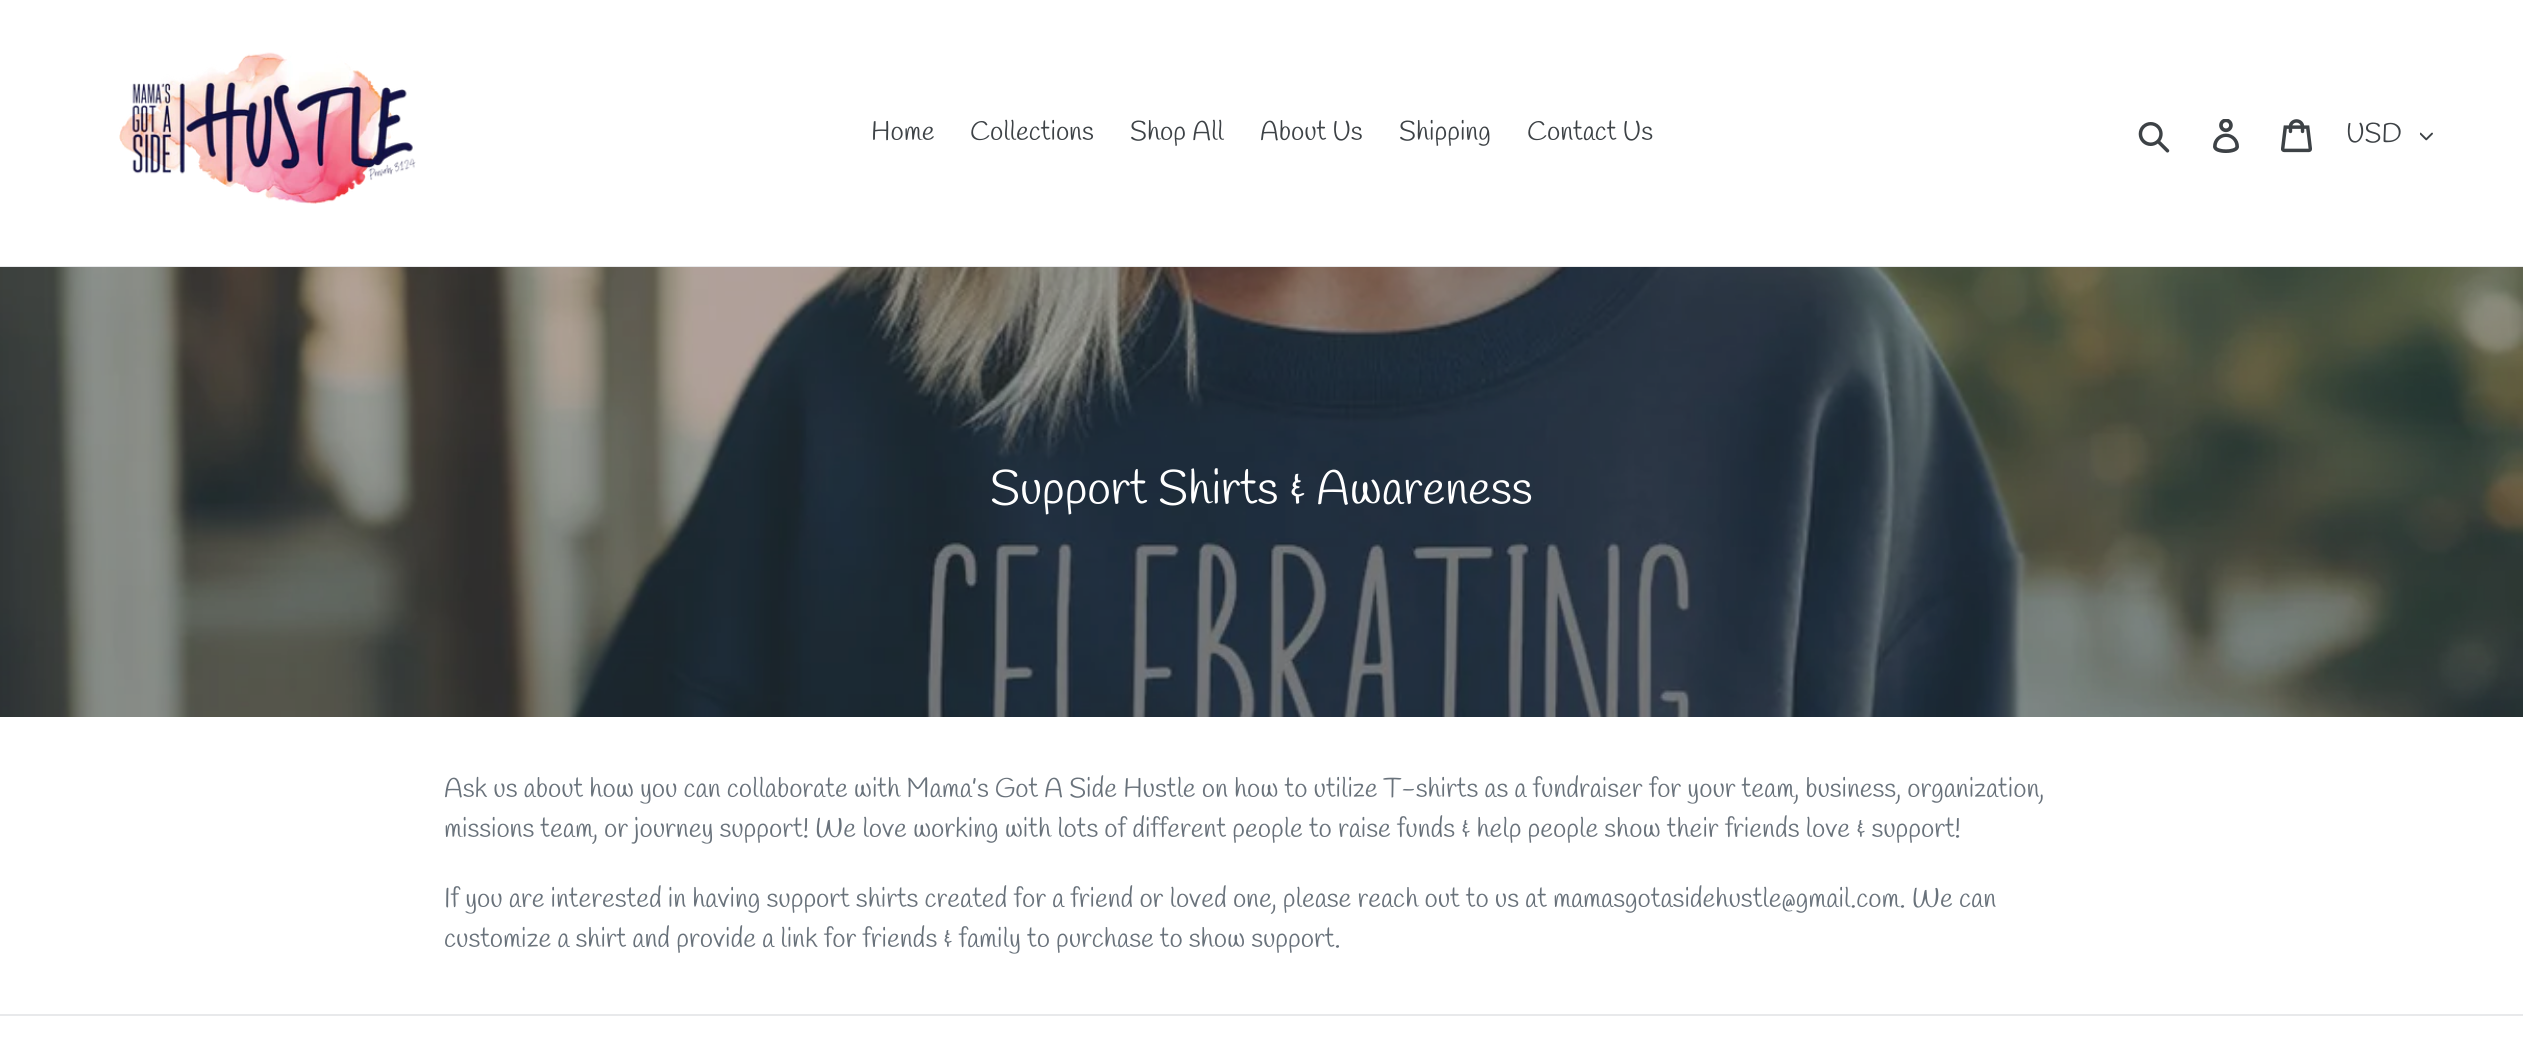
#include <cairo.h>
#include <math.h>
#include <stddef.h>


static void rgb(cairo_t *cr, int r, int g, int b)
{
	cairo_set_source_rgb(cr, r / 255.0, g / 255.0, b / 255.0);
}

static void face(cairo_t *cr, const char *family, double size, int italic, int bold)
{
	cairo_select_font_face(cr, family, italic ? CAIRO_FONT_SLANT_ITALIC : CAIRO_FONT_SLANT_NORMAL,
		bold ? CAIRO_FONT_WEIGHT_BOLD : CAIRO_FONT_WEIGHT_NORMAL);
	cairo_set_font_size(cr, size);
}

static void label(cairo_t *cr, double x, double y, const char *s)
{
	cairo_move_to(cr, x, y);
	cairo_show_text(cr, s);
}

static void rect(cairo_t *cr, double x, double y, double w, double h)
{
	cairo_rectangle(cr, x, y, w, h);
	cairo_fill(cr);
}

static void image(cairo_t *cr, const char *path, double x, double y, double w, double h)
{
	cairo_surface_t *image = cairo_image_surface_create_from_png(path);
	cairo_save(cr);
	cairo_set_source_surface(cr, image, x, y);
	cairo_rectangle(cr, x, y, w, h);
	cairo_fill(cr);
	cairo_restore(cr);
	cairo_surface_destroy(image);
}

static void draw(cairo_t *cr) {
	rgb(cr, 255, 255, 255);
	cairo_paint(cr);
	rgb(cr, 232, 233, 235);
	rect(cr, 0, 266, 2523, 1);
	image(cr, "image0.png", 119, 52, 297, 152);
	face(cr, "Handlee", 27, 0, 0);
	rgb(cr, 61, 66, 70);
	label(cr, 871, 140, "Home");
	label(cr, 970, 140, "Collections");
	label(cr, 1130, 140, "Shop All");
	label(cr, 1260, 140, "About Us");
	label(cr, 1399, 140, "Shipping");
	label(cr, 1527, 140, "Contact Us");
	image(cr, "image1.png", 2138, 122, 32, 31);
	image(cr, "image2.png", 2213, 119, 26, 34);
	image(cr, "image3.png", 2281, 119, 31, 34);
	label(cr, 2346, 142, "USD");
	image(cr, "image4.png", 2420, 132, 13, 9);
	image(cr, "image5.png", 0, 267, 2523, 450);
	face(cr, "Handlee", 48, 0, 0);
	rgb(cr, 255, 255, 255);
	label(cr, 990, 504, "Support Shirts & Awareness");
	face(cr, "Handlee", 27, 0, 0);
	rgb(cr, 105, 114, 123);
	label(cr, 444, 797, "Ask us about how you can collaborate with Mama’s Got A Side Hustle on how to utilize T-shirts as a fundraiser for your team, business, organization,");
	label(cr, 444, 837, "missions team, or journey support! We love working with lots of different people to raise funds & help people show their friends love & support!");
	label(cr, 444, 907, "If you are interested in having support shirts created for a friend or loved one, please reach out to us at mamasgotasidehustle@gmail.com. We can");
	label(cr, 444, 947, "customize a shirt and provide a link for friends & family to purchase to show support.");
	rgb(cr, 232, 233, 235);
	rect(cr, 0, 1014, 2523, 2);
}

int main(void) {
	cairo_surface_t *surface = cairo_image_surface_create(CAIRO_FORMAT_RGB24, 2523, 1044);
	cairo_t *cr = cairo_create(surface);
	cairo_font_options_t *options = cairo_font_options_create();
	cairo_font_options_set_hint_metrics(options, CAIRO_HINT_METRICS_OFF);
	cairo_font_options_set_hint_style(options, CAIRO_HINT_STYLE_NONE);
	cairo_set_font_options(cr, options);
	cairo_set_miter_limit(cr, 4);
	draw(cr);
	cairo_surface_write_to_png(surface, "render.png");
	cairo_font_options_destroy(options);
	cairo_destroy(cr);
	cairo_surface_destroy(surface);
	return 0;
}
